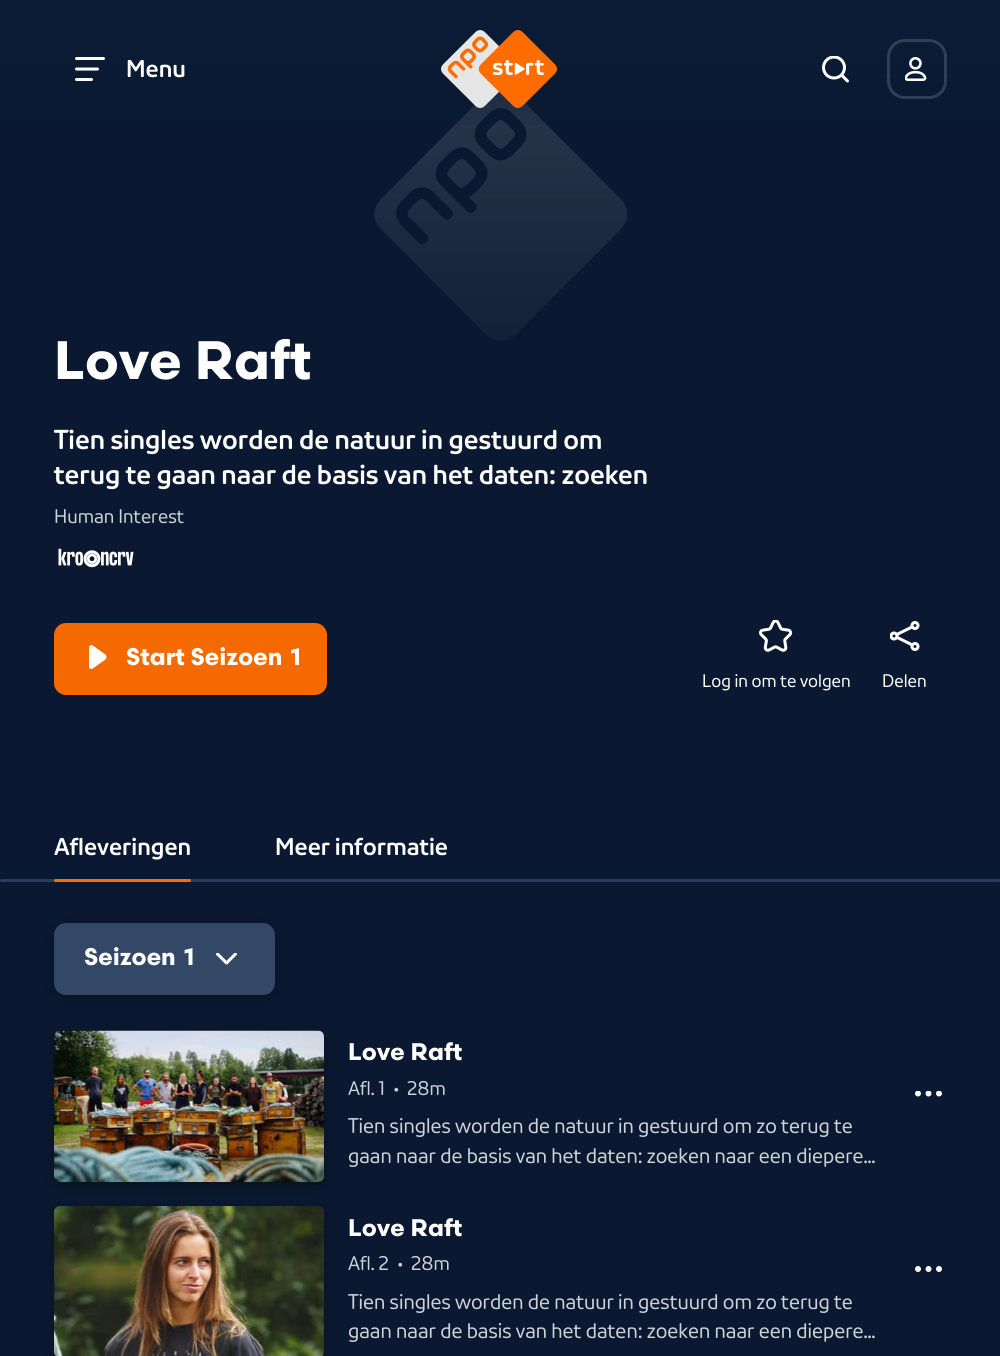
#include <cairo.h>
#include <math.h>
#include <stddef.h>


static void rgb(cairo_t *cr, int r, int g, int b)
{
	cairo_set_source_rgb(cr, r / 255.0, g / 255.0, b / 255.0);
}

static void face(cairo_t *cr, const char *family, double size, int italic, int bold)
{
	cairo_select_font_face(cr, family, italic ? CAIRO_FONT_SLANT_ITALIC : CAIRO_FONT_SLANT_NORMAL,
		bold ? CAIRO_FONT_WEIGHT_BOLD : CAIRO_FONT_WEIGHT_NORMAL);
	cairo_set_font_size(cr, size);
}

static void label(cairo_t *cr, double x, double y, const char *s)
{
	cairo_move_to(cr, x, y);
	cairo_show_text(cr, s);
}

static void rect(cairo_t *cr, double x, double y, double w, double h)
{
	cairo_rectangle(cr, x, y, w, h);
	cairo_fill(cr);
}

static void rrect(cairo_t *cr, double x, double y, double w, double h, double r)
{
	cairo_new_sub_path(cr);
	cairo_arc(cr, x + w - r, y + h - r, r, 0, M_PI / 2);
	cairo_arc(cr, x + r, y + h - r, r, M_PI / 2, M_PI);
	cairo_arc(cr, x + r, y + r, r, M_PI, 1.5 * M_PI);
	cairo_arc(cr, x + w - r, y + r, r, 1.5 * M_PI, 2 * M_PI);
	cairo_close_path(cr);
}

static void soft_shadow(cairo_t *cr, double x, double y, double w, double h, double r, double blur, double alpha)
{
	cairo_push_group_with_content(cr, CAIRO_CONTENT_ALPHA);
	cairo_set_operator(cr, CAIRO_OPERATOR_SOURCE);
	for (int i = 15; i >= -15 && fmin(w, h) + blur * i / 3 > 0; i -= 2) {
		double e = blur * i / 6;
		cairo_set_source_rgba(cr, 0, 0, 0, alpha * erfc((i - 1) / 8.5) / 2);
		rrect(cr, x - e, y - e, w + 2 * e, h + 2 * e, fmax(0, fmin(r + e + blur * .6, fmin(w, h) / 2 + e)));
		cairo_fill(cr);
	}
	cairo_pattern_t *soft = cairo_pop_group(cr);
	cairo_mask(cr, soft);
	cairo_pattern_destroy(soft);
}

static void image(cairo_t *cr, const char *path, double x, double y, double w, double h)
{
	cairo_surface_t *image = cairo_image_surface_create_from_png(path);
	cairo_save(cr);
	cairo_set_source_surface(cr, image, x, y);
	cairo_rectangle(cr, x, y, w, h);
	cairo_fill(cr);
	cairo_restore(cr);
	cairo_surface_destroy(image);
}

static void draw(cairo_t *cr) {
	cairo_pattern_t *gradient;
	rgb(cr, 10, 25, 49);
	cairo_paint(cr);
	image(cr, "image4.png", 374, 91, 253, 250);
	gradient = cairo_pattern_create_linear(500, 0, 500, 429);
	cairo_pattern_add_color_stop_rgba(gradient, 0, 0.039, 0.098, 0.192, 0);
	cairo_pattern_add_color_stop_rgba(gradient, 1, 0.039, 0.098, 0.192, 1);
	cairo_set_source(cr, gradient);
	cairo_pattern_destroy(gradient);
	rect(cr, 374, 91, 253, 250);
	gradient = cairo_pattern_create_linear(500, 138, 500, 0);
	cairo_pattern_add_color_stop_rgba(gradient, 0, 0.043, 0.11, 0.212, 0);
	cairo_pattern_add_color_stop_rgba(gradient, 1, 0.043, 0.11, 0.212, 1);
	cairo_set_source(cr, gradient);
	cairo_pattern_destroy(gradient);
	rect(cr, 0, 0, 1000, 125);
	image(cr, "image0.png", 75, 57, 30, 24);
	face(cr, "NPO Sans", 24, 0, 1);
	rgb(cr, 255, 255, 255);
	label(cr, 126, 77, "Menu");
	image(cr, "image1.png", 441, 30, 116, 78);
	image(cr, "image2.png", 822, 56, 27, 27);
	rrect(cr, 888.5, 40.5, 57, 57, 16.5);
	cairo_set_source_rgba(cr, 1, 1, 1, 0.16);
	cairo_set_line_width(cr, 3);
	cairo_stroke(cr);
	image(cr, "image3.png", 905, 57, 22, 24);
	face(cr, "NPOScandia", 54, 0, 1);
	rgb(cr, 255, 255, 255);
	label(cr, 54, 379, "Love Raft");
	face(cr, "NPO Sans", 27, 0, 1);
	label(cr, 54, 449, "Tien singles worden de natuur in gestuurd om");
	label(cr, 54, 484, "terug te gaan naar de basis van het daten: zoeken");
	face(cr, "NPO Sans", 19.5, 0, 0);
	rgb(cr, 206, 209, 214);
	label(cr, 54, 523, "Human Interest");
	image(cr, "image5.png", 58, 548, 76, 20);
	rgb(cr, 245, 106, 0);
	rrect(cr, 54, 623, 273, 72, 12);
	cairo_fill(cr);
	image(cr, "image6.png", 89, 645, 18, 24);
	face(cr, "NPOScandia", 24, 0, 1);
	rgb(cr, 255, 255, 255);
	label(cr, 126, 665, "Start Seizoen 1");
	image(cr, "image7.png", 759, 620, 34, 32);
	face(cr, "NPO Sans", 18, 0, 0);
	label(cr, 702, 687, "Log in om te volgen");
	image(cr, "image8.png", 890, 621, 30, 30);
	label(cr, 882, 687, "Delen");
	face(cr, "NPO Sans", 24, 0, 1);
	label(cr, 54, 855, "Afleveringen");
	rgb(cr, 41, 61, 93);
	rrect(cr, 0, 879, 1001, 3, 1.5);
	cairo_fill(cr);
	rgb(cr, 255, 109, 0);
	rrect(cr, 54, 879, 137, 3, 1.5);
	cairo_fill(cr);
	rgb(cr, 255, 255, 255);
	label(cr, 275, 855, "Meer informatie");
	rgb(cr, 0, 0, 0);
	soft_shadow(cr, 54, 926, 221, 72, 12, 6, 0.35);
	rgb(cr, 51, 71, 103);
	rrect(cr, 54, 923, 221, 72, 12);
	cairo_fill(cr);
	face(cr, "NPOScandia", 24, 0, 1);
	rgb(cr, 255, 255, 255);
	label(cr, 84, 965, "Seizoen 1");
	image(cr, "image9.png", 216, 953, 21, 12);
	rgb(cr, 0, 0, 0);
	soft_shadow(cr, 54, 1034, 270, 151, 6, 6, 0.35);
	image(cr, "image10.png", 54, 1030, 270, 152);
	rgb(cr, 255, 255, 255);
	label(cr, 348, 1060, "Love Raft");
	face(cr, "NPO Sans", 19.5, 0, 0);
	rgb(cr, 206, 209, 214);
	label(cr, 348, 1095, "Afl. 1");
	label(cr, 394, 1095, "•");
	label(cr, 407, 1095, "28m");
	face(cr, "NPO Sans", 21, 0, 0);
	label(cr, 348, 1133, "Tien singles worden de natuur in gestuurd om zo terug te");
	label(cr, 348, 1163, "gaan naar de basis van het daten: zoeken naar een diepere…");
	image(cr, "image11.png", 915, 1091, 27, 6);
	rgb(cr, 0, 0, 0);
	soft_shadow(cr, 54, 1209, 270, 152, 6, 6, 0.35);
	rgb(cr, 31, 51, 83);
	rrect(cr, 54, 1206, 270, 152, 6);
	cairo_fill(cr);
	image(cr, "image12.png", 54, 1206, 270, 150);
	face(cr, "NPOScandia", 24, 0, 1);
	rgb(cr, 255, 255, 255);
	label(cr, 348, 1236, "Love Raft");
	face(cr, "NPO Sans", 19.5, 0, 0);
	rgb(cr, 206, 209, 214);
	label(cr, 348, 1270, "Afl. 2");
	label(cr, 398, 1270, "•");
	label(cr, 411, 1270, "28m");
	face(cr, "NPO Sans", 21, 0, 0);
	label(cr, 348, 1309, "Tien singles worden de natuur in gestuurd om zo terug te");
	label(cr, 348, 1338, "gaan naar de basis van het daten: zoeken naar een diepere…");
	image(cr, "image13.png", 915, 1266, 27, 6);
}

int main(void) {
	cairo_surface_t *surface = cairo_image_surface_create(CAIRO_FORMAT_RGB24, 1000, 1356);
	cairo_t *cr = cairo_create(surface);
	cairo_font_options_t *options = cairo_font_options_create();
	cairo_font_options_set_hint_metrics(options, CAIRO_HINT_METRICS_OFF);
	cairo_font_options_set_hint_style(options, CAIRO_HINT_STYLE_NONE);
	cairo_set_font_options(cr, options);
	cairo_set_miter_limit(cr, 4);
	draw(cr);
	cairo_surface_write_to_png(surface, "render.png");
	cairo_font_options_destroy(options);
	cairo_destroy(cr);
	cairo_surface_destroy(surface);
	return 0;
}
